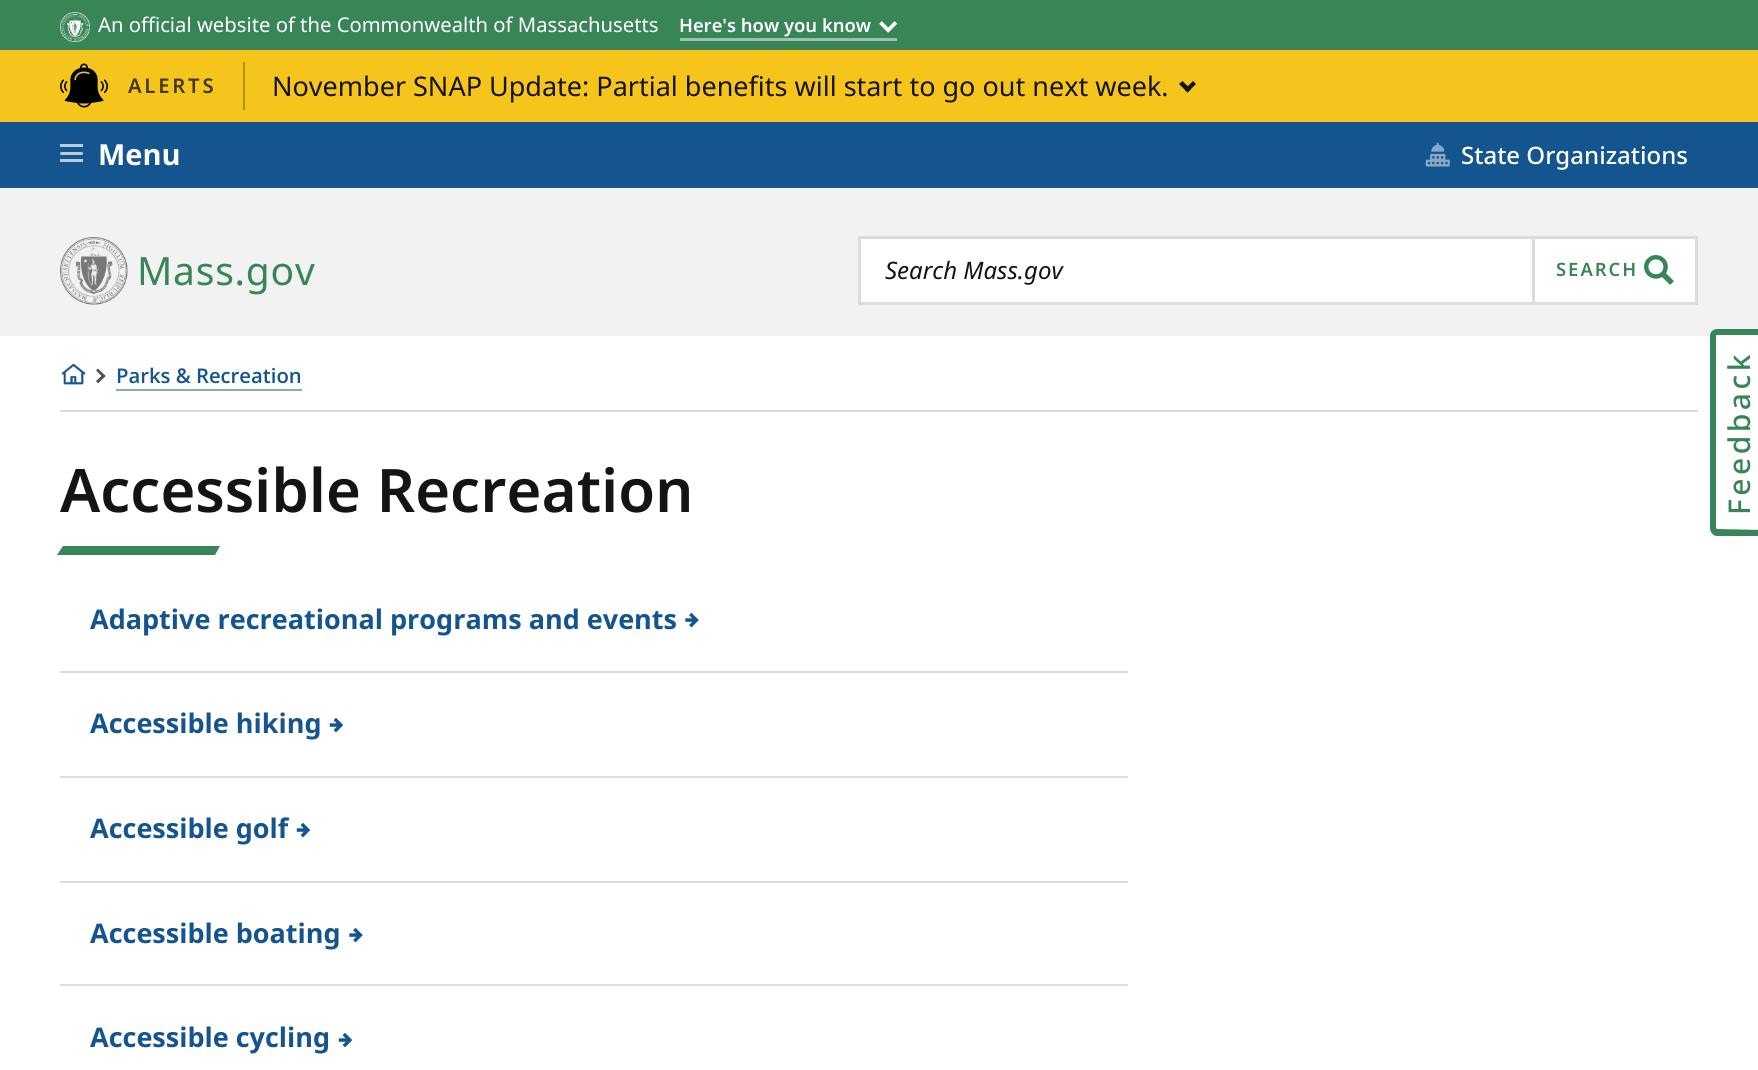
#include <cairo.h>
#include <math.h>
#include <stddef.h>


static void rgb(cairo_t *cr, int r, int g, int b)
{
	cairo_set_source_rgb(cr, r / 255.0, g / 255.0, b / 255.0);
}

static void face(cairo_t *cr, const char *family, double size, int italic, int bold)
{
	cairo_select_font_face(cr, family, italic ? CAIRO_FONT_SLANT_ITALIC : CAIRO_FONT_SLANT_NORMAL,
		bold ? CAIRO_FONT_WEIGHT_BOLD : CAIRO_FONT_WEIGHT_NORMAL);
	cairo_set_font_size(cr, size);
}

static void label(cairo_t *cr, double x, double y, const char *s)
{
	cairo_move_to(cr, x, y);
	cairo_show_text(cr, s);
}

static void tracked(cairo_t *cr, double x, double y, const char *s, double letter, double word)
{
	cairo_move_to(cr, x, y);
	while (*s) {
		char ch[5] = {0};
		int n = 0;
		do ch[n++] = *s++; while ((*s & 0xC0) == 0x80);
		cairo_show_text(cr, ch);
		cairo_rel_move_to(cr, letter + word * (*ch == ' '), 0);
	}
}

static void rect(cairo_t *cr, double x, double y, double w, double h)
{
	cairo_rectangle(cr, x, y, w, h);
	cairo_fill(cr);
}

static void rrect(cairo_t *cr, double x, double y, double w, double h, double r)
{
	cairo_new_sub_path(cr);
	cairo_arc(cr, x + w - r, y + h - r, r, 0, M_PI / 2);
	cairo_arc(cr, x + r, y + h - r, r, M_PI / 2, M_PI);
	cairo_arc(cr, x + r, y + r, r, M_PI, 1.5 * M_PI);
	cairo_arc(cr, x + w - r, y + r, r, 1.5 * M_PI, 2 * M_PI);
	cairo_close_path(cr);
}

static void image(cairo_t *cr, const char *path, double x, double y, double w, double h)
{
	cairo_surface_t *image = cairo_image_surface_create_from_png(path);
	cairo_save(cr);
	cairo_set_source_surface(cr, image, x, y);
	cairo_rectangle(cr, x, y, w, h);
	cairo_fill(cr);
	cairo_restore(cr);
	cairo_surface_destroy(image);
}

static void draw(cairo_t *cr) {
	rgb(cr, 255, 255, 255);
	cairo_paint(cr);
	rgb(cr, 56, 133, 87);
	rect(cr, 0, 0, 1758, 50);
	image(cr, "image0.png", 60, 12, 30, 30);
	face(cr, "Noto Sans", 20.25, 0, 0);
	rgb(cr, 255, 255, 255);
	label(cr, 98, 32, "An official website of the Commonwealth of Massachusetts");
	rgb(cr, 156, 194, 171);
	rect(cr, 680, 38, 217, 3);
	face(cr, "Noto Sans SemiBold", 18.4, 0, 0);
	rgb(cr, 255, 255, 255);
	label(cr, 679, 32, "Here's how you know");
	image(cr, "image1.png", 879, 21, 18, 12);
	rgb(cr, 246, 197, 27);
	rect(cr, 0, 50, 1758, 72);
	rgb(cr, 178, 144, 25);
	rect(cr, 243, 62, 2, 48);
	image(cr, "image2.png", 60, 63, 48, 45);
	face(cr, "Noto Sans SemiBold", 20.25, 0, 0);
	rgb(cr, 65, 55, 21);
	tracked(cr, 128, 93, "ALERTS", 2.75, 0);
	face(cr, "Noto Sans", 27, 0, 0);
	rgb(cr, 20, 20, 20);
	label(cr, 272, 96, "November SNAP Update: Partial benefits will start to go out next week.");
	cairo_new_path(cr);
	cairo_move_to(cr, 1193, 81);
	cairo_line_to(cr, 1196, 84);
	cairo_line_to(cr, 1187.5, 92.5);
	cairo_line_to(cr, 1184.5, 89.5);
	cairo_close_path(cr);
	cairo_fill(cr);
	cairo_new_path(cr);
	cairo_move_to(cr, 1182.5, 81);
	cairo_line_to(cr, 1191, 89.5);
	cairo_line_to(cr, 1187.5, 92.5);
	cairo_line_to(cr, 1179, 84);
	cairo_close_path(cr);
	cairo_fill(cr);
	rgb(cr, 242, 242, 242);
	rect(cr, 0, 188, 1758, 148);
	rgb(cr, 20, 85, 143);
	rect(cr, 0, 122, 1758, 66);
	rgb(cr, 185, 204, 221);
	rrect(cr, 60, 152, 23, 3, 1.5);
	cairo_fill(cr);
	rect(cr, 60, 144, 23, 3);
	rect(cr, 60, 159, 23, 3);
	face(cr, "Noto Sans", 29, 0, 1);
	rgb(cr, 255, 255, 255);
	label(cr, 98, 165, "Menu");
	image(cr, "image3.png", 1425, 143, 25, 24);
	face(cr, "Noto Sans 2 Medium", 24, 0, 0);
	label(cr, 1461, 164, "State Organizations");
	image(cr, "image4.png", 60, 237, 68, 68);
	face(cr, "Noto Sans", 39, 0, 0);
	rgb(cr, 56, 133, 87);
	tracked(cr, 137, 285, "Mass.gov", 0.75, 0);
	rgb(cr, 255, 255, 255);
	rect(cr, 861, 239, 671, 63);
	cairo_rectangle(cr, 859.5, 237.5, 837, 66);
	rgb(cr, 220, 220, 220);
	cairo_set_line_width(cr, 3);
	cairo_stroke(cr);
	face(cr, "Noto Sans", 24, 1, 0);
	rgb(cr, 20, 20, 20);
	label(cr, 885, 279, "Search Mass.gov");
	rgb(cr, 255, 255, 255);
	cairo_rectangle(cr, 1533.5, 237.5, 163, 66);
	cairo_fill_preserve(cr);
	rgb(cr, 220, 220, 220);
	cairo_stroke(cr);
	face(cr, "Noto Sans SemiBold", 18.4, 0, 0);
	rgb(cr, 56, 133, 87);
	tracked(cr, 1556, 276, "SEARCH", 2, 0);
	image(cr, "image5.png", 1644, 255, 30, 30);
	rgb(cr, 220, 220, 220);
	rect(cr, 60, 410, 1638, 2);
	image(cr, "image6.png", 61, 363, 25, 22);
	rgb(cr, 83, 83, 83);
	cairo_new_path(cr);
	cairo_move_to(cr, 96, 370.5);
	cairo_line_to(cr, 98, 368.5);
	cairo_line_to(cr, 105.5, 376);
	cairo_line_to(cr, 103.5, 378);
	cairo_close_path(cr);
	cairo_fill(cr);
	cairo_new_path(cr);
	cairo_move_to(cr, 96, 381);
	cairo_line_to(cr, 103.5, 374);
	cairo_line_to(cr, 105.5, 376);
	cairo_line_to(cr, 98, 383.5);
	cairo_close_path(cr);
	cairo_fill(cr);
	rgb(cr, 138, 170, 199);
	rect(cr, 116, 389, 186, 2);
	face(cr, "Noto Sans Medium", 20.25, 0, 0);
	rgb(cr, 20, 85, 143);
	label(cr, 116, 383, "Parks & Recreation");
	rgb(cr, 255, 255, 255);
	cairo_new_path(cr);
	cairo_move_to(cr, 1716, 528);
	cairo_line_to(cr, 1716, 336);
	cairo_curve_to(cr, 1716, 335, 1717, 335, 1717, 335);
	cairo_line_to(cr, 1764, 335);
	cairo_line_to(cr, 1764, 530);
	cairo_line_to(cr, 1717, 529);
	cairo_close_path(cr);
	cairo_fill(cr);
	rgb(cr, 56, 133, 87);
	cairo_set_fill_rule(cr, CAIRO_FILL_RULE_EVEN_ODD);
	cairo_new_path(cr);
	cairo_move_to(cr, 1710, 528);
	cairo_line_to(cr, 1710, 336);
	cairo_curve_to(cr, 1710, 332, 1713, 329, 1717, 329);
	cairo_line_to(cr, 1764, 329);
	cairo_line_to(cr, 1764, 536);
	cairo_line_to(cr, 1717, 536);
	cairo_curve_to(cr, 1713, 536, 1710, 532, 1710, 528);
	cairo_close_path(cr);
	cairo_move_to(cr, 1716, 528);
	cairo_line_to(cr, 1716, 336);
	cairo_curve_to(cr, 1716, 335, 1717, 335, 1717, 335);
	cairo_line_to(cr, 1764, 335);
	cairo_line_to(cr, 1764, 530);
	cairo_line_to(cr, 1717, 529);
	cairo_close_path(cr);
	cairo_fill(cr);
	face(cr, "Noto Sans 2 Medium", 30, 0, 0);
	cairo_save(cr);
	cairo_translate(cr, 1750, 515);
	cairo_rotate(cr, -90 * M_PI / 180);
	tracked(cr, 0, 0, "Feedback", 3.5, 0);
	cairo_restore(cr);
	face(cr, "Noto Sans SemiBold", 60, 0, 0);
	rgb(cr, 20, 20, 20);
	label(cr, 60, 512, "Accessible Recreation");
	rgb(cr, 56, 133, 87);
	cairo_set_fill_rule(cr, CAIRO_FILL_RULE_WINDING);
	cairo_new_path(cr);
	cairo_move_to(cr, 63, 546);
	cairo_line_to(cr, 220, 546);
	cairo_line_to(cr, 215, 555);
	cairo_line_to(cr, 57, 555);
	cairo_close_path(cr);
	cairo_fill(cr);
	face(cr, "Noto Sans", 27, 0, 1);
	rgb(cr, 20, 85, 143);
	label(cr, 90, 629, "Adaptive recreational programs and events");
	image(cr, "image7.png", 685, 612, 14, 16);
	rgb(cr, 220, 220, 220);
	rect(cr, 60, 671, 1068, 2);
	rgb(cr, 20, 85, 143);
	label(cr, 90, 733, "Accessible hiking");
	image(cr, "image8.png", 329, 717, 15, 16);
	rgb(cr, 220, 220, 220);
	rect(cr, 60, 776, 1068, 2);
	rgb(cr, 20, 85, 143);
	label(cr, 90, 838, "Accessible golf");
	image(cr, "image8.png", 296, 822, 15, 16);
	rgb(cr, 220, 220, 220);
	rect(cr, 60, 881, 1068, 2);
	rgb(cr, 20, 85, 143);
	label(cr, 90, 943, "Accessible boating");
	image(cr, "image7.png", 349, 927, 14, 16);
	rgb(cr, 220, 220, 220);
	rect(cr, 60, 984, 1068, 2);
	rgb(cr, 20, 85, 143);
	label(cr, 90, 1047, "Accessible cycling");
	image(cr, "image9.png", 338, 1032, 15, 15);
}

int main(void) {
	cairo_surface_t *surface = cairo_image_surface_create(CAIRO_FORMAT_RGB24, 1758, 1070);
	cairo_t *cr = cairo_create(surface);
	cairo_font_options_t *options = cairo_font_options_create();
	cairo_font_options_set_hint_metrics(options, CAIRO_HINT_METRICS_OFF);
	cairo_font_options_set_hint_style(options, CAIRO_HINT_STYLE_NONE);
	cairo_set_font_options(cr, options);
	cairo_set_miter_limit(cr, 4);
	draw(cr);
	cairo_surface_write_to_png(surface, "render.png");
	cairo_font_options_destroy(options);
	cairo_destroy(cr);
	cairo_surface_destroy(surface);
	return 0;
}
